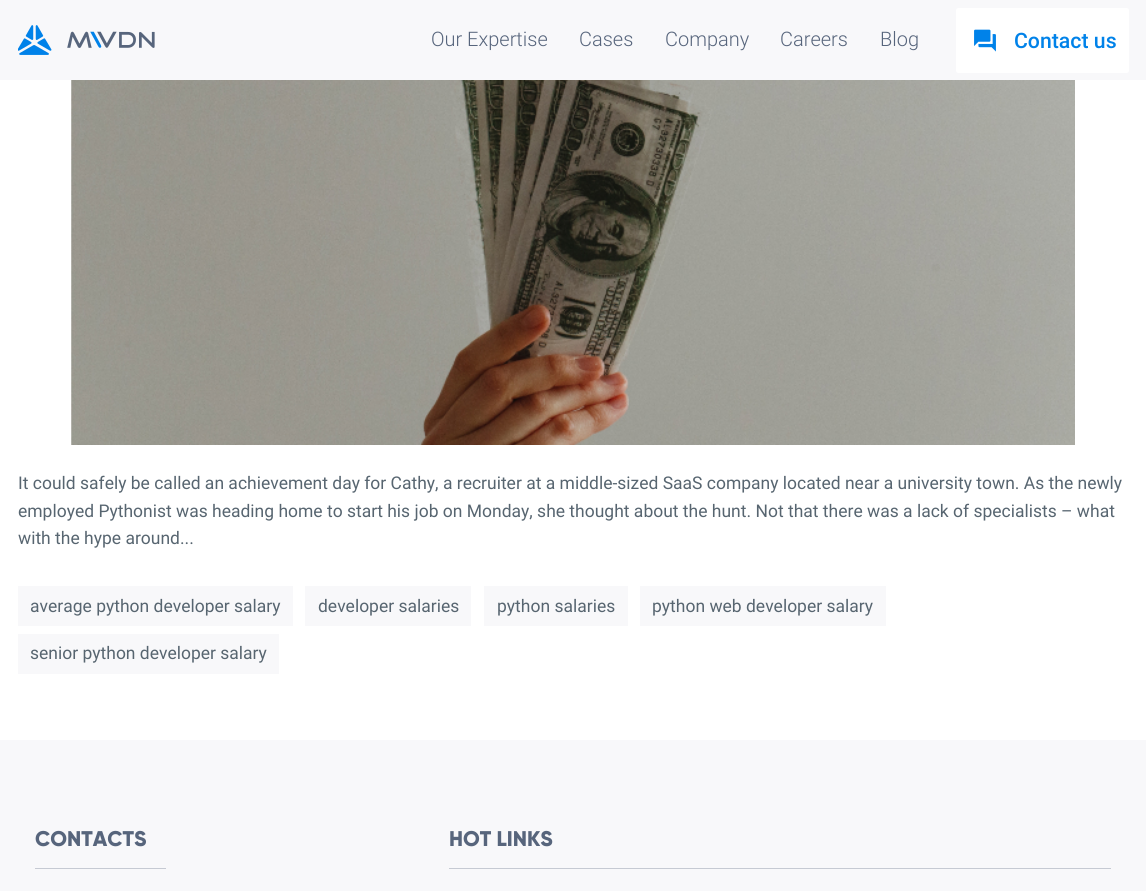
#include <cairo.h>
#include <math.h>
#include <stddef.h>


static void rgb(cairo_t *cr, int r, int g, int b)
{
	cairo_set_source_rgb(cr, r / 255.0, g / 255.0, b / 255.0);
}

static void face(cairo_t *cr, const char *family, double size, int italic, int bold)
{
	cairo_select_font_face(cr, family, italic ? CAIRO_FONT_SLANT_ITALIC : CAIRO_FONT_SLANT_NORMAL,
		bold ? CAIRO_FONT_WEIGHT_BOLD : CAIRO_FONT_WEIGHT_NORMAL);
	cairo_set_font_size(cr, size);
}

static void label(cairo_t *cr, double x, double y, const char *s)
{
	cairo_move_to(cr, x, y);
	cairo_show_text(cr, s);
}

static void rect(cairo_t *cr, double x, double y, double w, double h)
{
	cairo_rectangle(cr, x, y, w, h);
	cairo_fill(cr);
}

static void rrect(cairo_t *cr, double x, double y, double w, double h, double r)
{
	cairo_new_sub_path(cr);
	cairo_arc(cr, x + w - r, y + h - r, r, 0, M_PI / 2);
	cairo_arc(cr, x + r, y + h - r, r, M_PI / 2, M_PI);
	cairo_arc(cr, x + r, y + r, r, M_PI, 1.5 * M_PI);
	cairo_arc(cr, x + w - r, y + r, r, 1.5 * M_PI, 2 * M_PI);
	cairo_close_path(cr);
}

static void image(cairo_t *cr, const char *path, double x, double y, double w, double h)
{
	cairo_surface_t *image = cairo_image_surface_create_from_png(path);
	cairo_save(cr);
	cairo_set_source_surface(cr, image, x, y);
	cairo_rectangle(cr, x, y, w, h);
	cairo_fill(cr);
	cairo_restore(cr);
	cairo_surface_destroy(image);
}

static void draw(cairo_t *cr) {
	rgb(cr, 255, 255, 255);
	cairo_paint(cr);
	rgb(cr, 248, 248, 250);
	rect(cr, 0, 0, 1146, 80);
	image(cr, "image0.png", 18, 25, 137, 30);
	face(cr, "Roboto Light", 20, 0, 0);
	rgb(cr, 87, 101, 124);
	label(cr, 431, 46, "Our Expertise");
	label(cr, 579, 46, "Cases");
	label(cr, 665, 46, "Company");
	label(cr, 780, 46, "Careers");
	label(cr, 880, 46, "Blog");
	rgb(cr, 255, 255, 255);
	rrect(cr, 956, 8, 173, 65, 2.5);
	cairo_fill(cr);
	image(cr, "image1.png", 974, 29, 22, 23);
	face(cr, "Roboto Medium", 21.25, 0, 0);
	rgb(cr, 0, 130, 233);
	label(cr, 1014, 48, "Contact us");
	image(cr, "image2.png", 71, 80, 1004, 365);
	face(cr, "Roboto", 17.5, 0, 0);
	rgb(cr, 87, 101, 112);
	label(cr, 18, 489, "It could safely be called an achievement day for Cathy, a recruiter at a middle-sized SaaS company located near a university town. As the newly");
	label(cr, 18, 517, "employed Pythonist was heading home to start his job on Monday, she thought about the hunt. Not that there was a lack of specialists – what");
	label(cr, 18, 544, "with the hype around...");
	rgb(cr, 248, 248, 250);
	rect(cr, 18, 586, 275, 40);
	rgb(cr, 87, 101, 112);
	label(cr, 30, 612, "average python developer salary");
	rgb(cr, 248, 248, 250);
	rect(cr, 305, 586, 166, 40);
	rgb(cr, 87, 101, 112);
	label(cr, 318, 612, "developer salaries");
	rgb(cr, 248, 248, 250);
	rect(cr, 484, 586, 144, 40);
	rgb(cr, 87, 101, 112);
	label(cr, 497, 612, "python salaries");
	rgb(cr, 248, 248, 250);
	rect(cr, 640, 586, 246, 40);
	rgb(cr, 87, 101, 112);
	label(cr, 652, 612, "python web developer salary");
	rgb(cr, 248, 248, 250);
	rect(cr, 18, 634, 261, 40);
	rgb(cr, 87, 101, 112);
	label(cr, 30, 659, "senior python developer salary");
	rgb(cr, 248, 248, 250);
	rect(cr, 0, 740, 1146, 151);
	rgb(cr, 198, 202, 211);
	rect(cr, 35, 868, 131, 1);
	face(cr, "Gilroy ExtraBold", 21.25, 0, 0);
	rgb(cr, 87, 101, 124);
	label(cr, 35, 846, "CONTACTS");
	rgb(cr, 198, 202, 211);
	rect(cr, 449, 868, 662, 1);
	rgb(cr, 87, 101, 124);
	label(cr, 449, 846, "HOT LINKS");
}

int main(void) {
	cairo_surface_t *surface = cairo_image_surface_create(CAIRO_FORMAT_RGB24, 1146, 891);
	cairo_t *cr = cairo_create(surface);
	cairo_font_options_t *options = cairo_font_options_create();
	cairo_font_options_set_hint_metrics(options, CAIRO_HINT_METRICS_OFF);
	cairo_font_options_set_hint_style(options, CAIRO_HINT_STYLE_NONE);
	cairo_set_font_options(cr, options);
	cairo_set_miter_limit(cr, 4);
	draw(cr);
	cairo_surface_write_to_png(surface, "render.png");
	cairo_font_options_destroy(options);
	cairo_destroy(cr);
	cairo_surface_destroy(surface);
	return 0;
}
